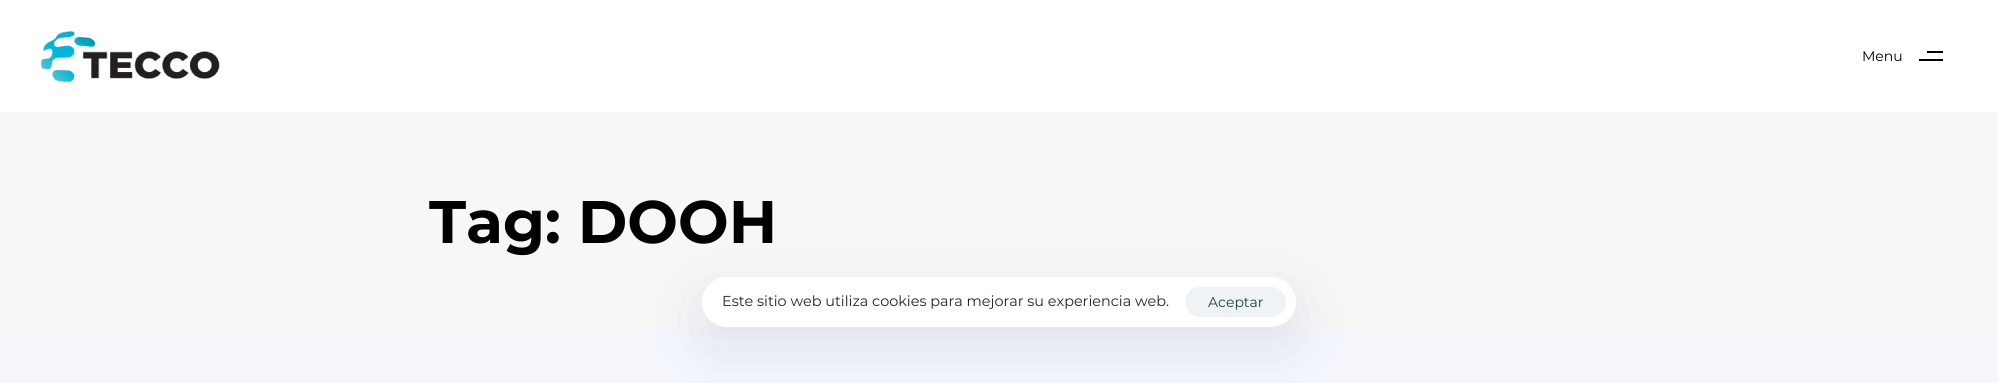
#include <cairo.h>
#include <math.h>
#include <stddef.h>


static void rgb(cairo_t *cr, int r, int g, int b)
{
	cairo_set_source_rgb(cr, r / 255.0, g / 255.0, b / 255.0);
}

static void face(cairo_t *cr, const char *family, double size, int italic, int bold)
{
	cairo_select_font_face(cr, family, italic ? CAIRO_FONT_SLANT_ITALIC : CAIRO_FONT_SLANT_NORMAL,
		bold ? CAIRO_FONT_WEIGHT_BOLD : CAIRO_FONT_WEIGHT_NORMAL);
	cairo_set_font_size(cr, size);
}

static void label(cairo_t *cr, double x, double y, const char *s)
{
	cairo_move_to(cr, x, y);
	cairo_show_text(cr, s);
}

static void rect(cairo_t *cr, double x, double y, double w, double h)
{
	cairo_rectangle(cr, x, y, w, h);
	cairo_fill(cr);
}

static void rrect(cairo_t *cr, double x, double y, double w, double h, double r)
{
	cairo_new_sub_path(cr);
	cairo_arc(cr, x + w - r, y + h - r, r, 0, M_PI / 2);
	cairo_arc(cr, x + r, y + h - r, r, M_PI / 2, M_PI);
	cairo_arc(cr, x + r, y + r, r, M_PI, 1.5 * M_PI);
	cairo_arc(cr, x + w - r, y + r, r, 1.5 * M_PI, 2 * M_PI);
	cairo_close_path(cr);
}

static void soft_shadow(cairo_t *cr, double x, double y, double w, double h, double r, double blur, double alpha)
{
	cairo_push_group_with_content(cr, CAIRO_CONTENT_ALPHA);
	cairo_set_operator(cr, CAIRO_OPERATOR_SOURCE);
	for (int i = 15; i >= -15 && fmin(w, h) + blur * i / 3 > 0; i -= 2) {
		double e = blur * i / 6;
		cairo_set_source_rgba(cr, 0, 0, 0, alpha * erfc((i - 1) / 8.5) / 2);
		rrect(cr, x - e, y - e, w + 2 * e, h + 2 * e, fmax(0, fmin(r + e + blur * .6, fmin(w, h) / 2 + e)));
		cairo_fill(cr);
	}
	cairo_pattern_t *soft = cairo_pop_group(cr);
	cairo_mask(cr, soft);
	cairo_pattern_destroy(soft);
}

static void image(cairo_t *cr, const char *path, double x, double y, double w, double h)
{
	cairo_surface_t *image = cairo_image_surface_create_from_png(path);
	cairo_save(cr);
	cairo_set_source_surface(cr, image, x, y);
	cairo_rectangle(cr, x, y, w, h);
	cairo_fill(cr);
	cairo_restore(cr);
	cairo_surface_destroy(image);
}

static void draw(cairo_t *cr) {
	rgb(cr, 255, 255, 255);
	cairo_paint(cr);
	image(cr, "image0.png", 40, 31, 180, 51);
	face(cr, "Montserrat", 14, 0, 0);
	rgb(cr, 0, 0, 0);
	label(cr, 1862, 61, "Menu");
	rect(cr, 1927, 51, 16, 2);
	rect(cr, 1919, 59, 24, 2);
	rgb(cr, 247, 247, 247);
	rect(cr, 0, 112, 1998, 220);
	face(cr, "Montserrat", 60, 0, 1);
	rgb(cr, 0, 0, 0);
	label(cr, 429, 243, "Tag: DOOH");
	rgb(cr, 245, 247, 253);
	rect(cr, 0, 332, 1998, 51);
	rgb(cr, 92, 107, 149);
	soft_shadow(cr, 702, 297, 594, 50, 25, 30, 0.15);
	rgb(cr, 255, 255, 255);
	rrect(cr, 702, 277, 594, 50, 25);
	cairo_fill(cr);
	face(cr, "Montserrat", 14.4, 0, 0);
	rgb(cr, 36, 36, 36);
	label(cr, 722, 306, "Este sitio web utiliza cookies para mejorar su experiencia web.");
	rgb(cr, 239, 243, 245);
	rrect(cr, 1185, 287, 101, 30, 15);
	cairo_fill(cr);
	face(cr, "Montserrat", 14, 0, 0);
	rgb(cr, 24, 67, 65);
	label(cr, 1208, 307, "Aceptar");
}

int main(void) {
	cairo_surface_t *surface = cairo_image_surface_create(CAIRO_FORMAT_RGB24, 1998, 383);
	cairo_t *cr = cairo_create(surface);
	cairo_font_options_t *options = cairo_font_options_create();
	cairo_font_options_set_hint_metrics(options, CAIRO_HINT_METRICS_OFF);
	cairo_font_options_set_hint_style(options, CAIRO_HINT_STYLE_NONE);
	cairo_set_font_options(cr, options);
	cairo_set_miter_limit(cr, 4);
	draw(cr);
	cairo_surface_write_to_png(surface, "render.png");
	cairo_font_options_destroy(options);
	cairo_destroy(cr);
	cairo_surface_destroy(surface);
	return 0;
}
